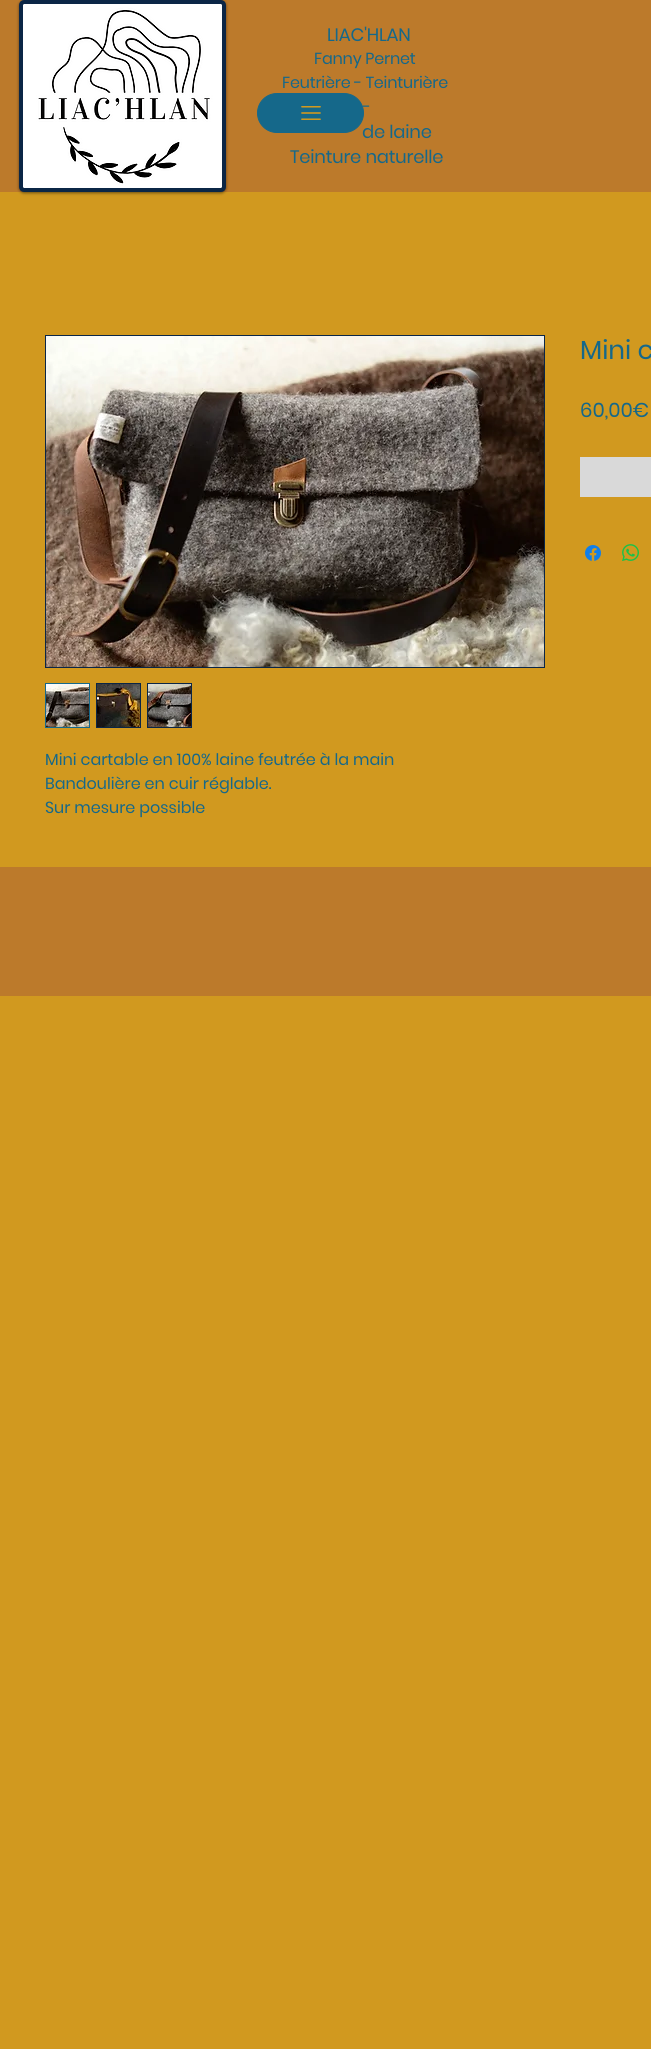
#include <cairo.h>
#include <math.h>
#include <stddef.h>


static void rgb(cairo_t *cr, int r, int g, int b)
{
	cairo_set_source_rgb(cr, r / 255.0, g / 255.0, b / 255.0);
}

static void face(cairo_t *cr, const char *family, double size, int italic, int bold)
{
	cairo_select_font_face(cr, family, italic ? CAIRO_FONT_SLANT_ITALIC : CAIRO_FONT_SLANT_NORMAL,
		bold ? CAIRO_FONT_WEIGHT_BOLD : CAIRO_FONT_WEIGHT_NORMAL);
	cairo_set_font_size(cr, size);
}

static void label(cairo_t *cr, double x, double y, const char *s)
{
	cairo_move_to(cr, x, y);
	cairo_show_text(cr, s);
}

static void tracked(cairo_t *cr, double x, double y, const char *s, double letter, double word)
{
	cairo_move_to(cr, x, y);
	while (*s) {
		char ch[5] = {0};
		int n = 0;
		do ch[n++] = *s++; while ((*s & 0xC0) == 0x80);
		cairo_show_text(cr, ch);
		cairo_rel_move_to(cr, letter + word * (*ch == ' '), 0);
	}
}

static void rect(cairo_t *cr, double x, double y, double w, double h)
{
	cairo_rectangle(cr, x, y, w, h);
	cairo_fill(cr);
}

static void rrect(cairo_t *cr, double x, double y, double w, double h, double r)
{
	cairo_new_sub_path(cr);
	cairo_arc(cr, x + w - r, y + h - r, r, 0, M_PI / 2);
	cairo_arc(cr, x + r, y + h - r, r, M_PI / 2, M_PI);
	cairo_arc(cr, x + r, y + r, r, M_PI, 1.5 * M_PI);
	cairo_arc(cr, x + w - r, y + r, r, 1.5 * M_PI, 2 * M_PI);
	cairo_close_path(cr);
}

static void soft_shadow(cairo_t *cr, double x, double y, double w, double h, double r, double blur, double alpha)
{
	cairo_push_group_with_content(cr, CAIRO_CONTENT_ALPHA);
	cairo_set_operator(cr, CAIRO_OPERATOR_SOURCE);
	for (int i = 15; i >= -15 && fmin(w, h) + blur * i / 3 > 0; i -= 2) {
		double e = blur * i / 6;
		cairo_set_source_rgba(cr, 0, 0, 0, alpha * erfc((i - 1) / 8.5) / 2);
		rrect(cr, x - e, y - e, w + 2 * e, h + 2 * e, fmax(0, fmin(r + e + blur * .6, fmin(w, h) / 2 + e)));
		cairo_fill(cr);
	}
	cairo_pattern_t *soft = cairo_pop_group(cr);
	cairo_mask(cr, soft);
	cairo_pattern_destroy(soft);
}

static void image(cairo_t *cr, const char *path, double x, double y, double w, double h)
{
	cairo_surface_t *image = cairo_image_surface_create_from_png(path);
	cairo_save(cr);
	cairo_set_source_surface(cr, image, x, y);
	cairo_rectangle(cr, x, y, w, h);
	cairo_fill(cr);
	cairo_restore(cr);
	cairo_surface_destroy(image);
}

static void draw(cairo_t *cr) {
	rgb(cr, 209, 153, 31);
	cairo_paint(cr);
	rgb(cr, 188, 122, 43);
	rect(cr, 0, 0, 651, 192);
	rgb(cr, 0, 0, 0);
	soft_shadow(cr, 19, 1, 207, 192, 5, 1.5, 0.5);
	rgb(cr, 11, 38, 70);
	rrect(cr, 21, 2, 203, 188, 3);
	cairo_fill_preserve(cr);
	cairo_set_line_width(cr, 4);
	cairo_stroke(cr);
	image(cr, "image0.png", 23, 4, 199, 184);
	face(cr, "Poppins", 18, 0, 0);
	rgb(cr, 21, 104, 138);
	tracked(cr, 327, 41, "LIAC'HLAN", -0.2, 0);
	face(cr, "Poppins", 16, 0, 0);
	tracked(cr, 314, 64, "Fanny Pernet", -0.2, 0);
	tracked(cr, 282, 88, "Feutrière - Teinturière", -0.2, 0);
	tracked(cr, 363, 112, "-", -0.2, 0);
	face(cr, "Poppins", 18, 0, 0);
	tracked(cr, 362, 138, "de laine", -0.2, 0);
	tracked(cr, 290, 163, "Teinture naturelle", -0.2, 0);
	rrect(cr, 257.5, 93.5, 106, 39, 19.5);
	cairo_fill_preserve(cr);
	cairo_set_line_width(cr, 1);
	cairo_stroke(cr);
	image(cr, "image1.png", 301, 106, 20, 14);
	face(cr, "Poppins", 26, 0, 0);
	label(cr, 580, 359, "Mini c");
	face(cr, "Poppins", 20, 0, 0);
	label(cr, 580, 417, "60,00€");
	rgb(cr, 217, 217, 217);
	rect(cr, 580, 457, 71, 40);
	image(cr, "image2.png", 585, 545, 16, 16);
	image(cr, "image3.png", 622, 544, 17, 17);
	cairo_rectangle(cr, 45.5, 335.5, 499, 332);
	rgb(cr, 11, 38, 70);
	cairo_stroke(cr);
	image(cr, "image4.png", 46, 336, 498, 331);
	cairo_rectangle(cr, 45.5, 683.5, 44, 44);
	rgb(cr, 21, 104, 138);
	cairo_stroke(cr);
	image(cr, "image5.png", 46, 684, 43, 43);
	rgb(cr, 11, 38, 70);
	rect(cr, 96, 683, 45, 45);
	image(cr, "image6.png", 97, 684, 43, 43);
	rect(cr, 147, 683, 45, 45);
	image(cr, "image7.png", 148, 684, 43, 43);
	face(cr, "Poppins", 16, 0, 0);
	rgb(cr, 21, 104, 138);
	label(cr, 45, 765, "Mini cartable en 100% laine feutrée à la main");
	label(cr, 45, 789, "Bandoulière en cuir réglable.");
	label(cr, 45, 813, "Sur mesure possible");
	rgb(cr, 188, 122, 43);
	rect(cr, 0, 867, 651, 129);
}

int main(void) {
	cairo_surface_t *surface = cairo_image_surface_create(CAIRO_FORMAT_RGB24, 651, 2049);
	cairo_t *cr = cairo_create(surface);
	cairo_font_options_t *options = cairo_font_options_create();
	cairo_font_options_set_hint_metrics(options, CAIRO_HINT_METRICS_OFF);
	cairo_font_options_set_hint_style(options, CAIRO_HINT_STYLE_NONE);
	cairo_set_font_options(cr, options);
	cairo_set_miter_limit(cr, 4);
	draw(cr);
	cairo_surface_write_to_png(surface, "render.png");
	cairo_font_options_destroy(options);
	cairo_destroy(cr);
	cairo_surface_destroy(surface);
	return 0;
}
